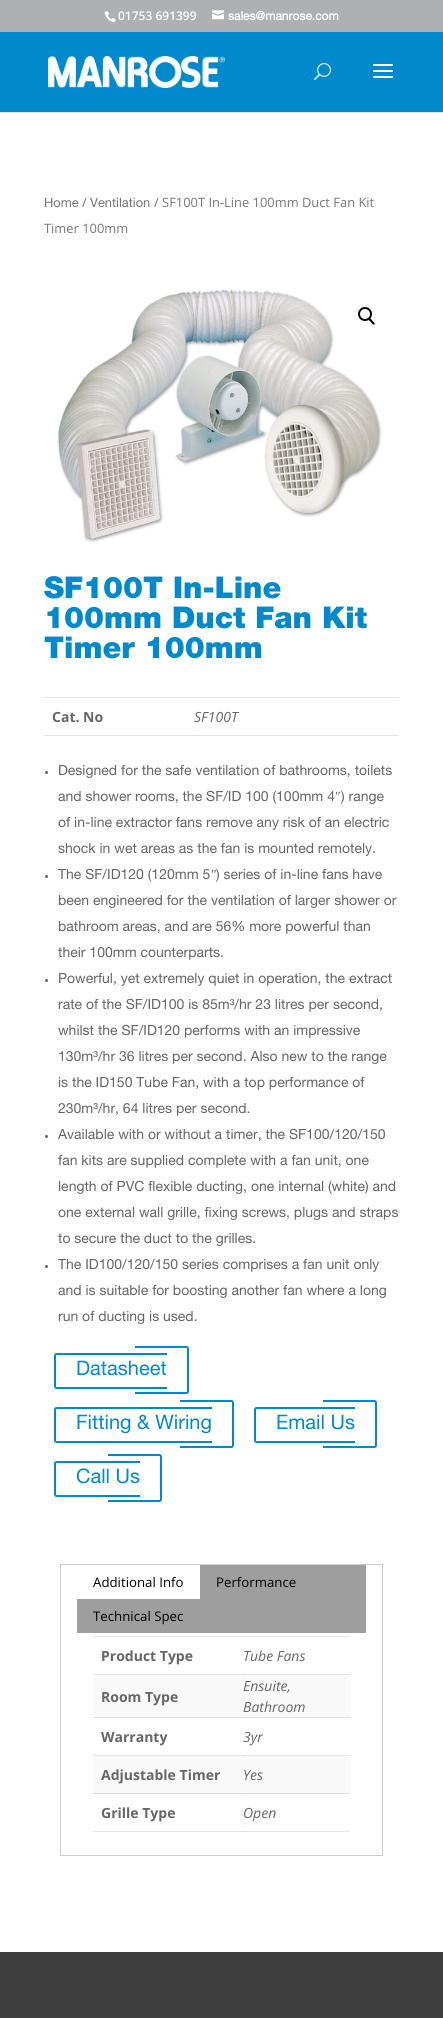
#include <cairo.h>
#include <math.h>
#include <stddef.h>


static void rgb(cairo_t *cr, int r, int g, int b)
{
	cairo_set_source_rgb(cr, r / 255.0, g / 255.0, b / 255.0);
}

static void face(cairo_t *cr, const char *family, double size, int italic, int bold)
{
	cairo_select_font_face(cr, family, italic ? CAIRO_FONT_SLANT_ITALIC : CAIRO_FONT_SLANT_NORMAL,
		bold ? CAIRO_FONT_WEIGHT_BOLD : CAIRO_FONT_WEIGHT_NORMAL);
	cairo_set_font_size(cr, size);
}

static void label(cairo_t *cr, double x, double y, const char *s)
{
	cairo_move_to(cr, x, y);
	cairo_show_text(cr, s);
}

static void rect(cairo_t *cr, double x, double y, double w, double h)
{
	cairo_rectangle(cr, x, y, w, h);
	cairo_fill(cr);
}

static void image(cairo_t *cr, const char *path, double x, double y, double w, double h)
{
	cairo_surface_t *image = cairo_image_surface_create_from_png(path);
	cairo_save(cr);
	cairo_set_source_surface(cr, image, x, y);
	cairo_rectangle(cr, x, y, w, h);
	cairo_fill(cr);
	cairo_restore(cr);
	cairo_surface_destroy(image);
}

static void draw(cairo_t *cr) {
	rgb(cr, 255, 255, 255);
	cairo_paint(cr);
	rgb(cr, 230, 230, 230);
	rect(cr, 93, 1674, 151, 1);
	rect(cr, 93, 1755, 151, 1);
	rect(cr, 93, 1831, 151, 1);
	rect(cr, 44, 735, 355, 1);
	rgb(cr, 175, 176, 180);
	rect(cr, 0, 0, 443, 32);
	image(cr, "image0.png", 104, 11, 12, 12);
	face(cr, "Open Sans SemiBold", 12, 0, 0);
	rgb(cr, 255, 255, 255);
	label(cr, 118, 20, "01753 691399");
	image(cr, "image1.png", 212, 10, 12, 10);
	face(cr, "Helvetica Neue", 12, 0, 1);
	label(cr, 228, 20, "sales@manrose.com");
	rgb(cr, 230, 230, 230);
	rect(cr, 0, 112, 443, 1);
	rgb(cr, 0, 138, 205);
	rect(cr, 0, 32, 443, 80);
	image(cr, "image2.png", 48, 56, 177, 32);
	image(cr, "image3.png", 314, 63, 17, 18);
	image(cr, "image4.png", 373, 64, 20, 14);
	face(cr, "Helvetica Neue", 12.9, 0, 0);
	rgb(cr, 118, 118, 118);
	label(cr, 44, 207, "Home");
	face(cr, "Open Sans", 12.9, 0, 0);
	label(cr, 82, 207, "/");
	face(cr, "Helvetica Neue", 12.9, 0, 0);
	label(cr, 90, 207, "Ventilation");
	face(cr, "Open Sans", 12.9, 0, 0);
	label(cr, 154, 207, "/ SF100T In-Line 100mm Duct Fan Kit");
	label(cr, 44, 233, "Timer 100mm");
	image(cr, "image5.png", 57, 289, 325, 253);
	cairo_arc(cr, 365, 314, 6, 0, 2 * M_PI);
	rgb(cr, 0, 0, 0);
	cairo_stroke(cr);
	cairo_new_path(cr);
	cairo_move_to(cr, 369, 318.5);
	cairo_curve_to(cr, 370, 317.5, 372, 320, 372.5, 321);
	cairo_curve_to(cr, 373, 321.5, 375.5, 323, 374.5, 324.5);
	cairo_curve_to(cr, 373.5, 325.5, 371.5, 323, 371, 322);
	cairo_curve_to(cr, 370.5, 321.5, 367.5, 320, 369, 318.5);
	cairo_close_path(cr);
	cairo_fill(cr);
	face(cr, "Helvetica Neue Black", 30, 0, 0);
	rgb(cr, 0, 138, 205);
	label(cr, 44, 598, "SF100T In-Line");
	label(cr, 44, 628, "100mm Duct Fan Kit");
	label(cr, 44, 658, "Timer 100mm");
	rgb(cr, 230, 230, 230);
	rect(cr, 44, 697, 355, 1);
	face(cr, "Open Sans", 14, 0, 1);
	rgb(cr, 102, 102, 102);
	label(cr, 52, 722, "Cat. No");
	rgb(cr, 207, 207, 207);
	rect(cr, 194, 735, 1, 1);
	face(cr, "Open Sans", 14, 1, 0);
	rgb(cr, 102, 102, 102);
	label(cr, 194, 722, "SF100T");
	cairo_new_path(cr);
	cairo_arc(cr, 46.5, 772.5, 1.5, 0, 2 * M_PI);
	cairo_fill(cr);
	face(cr, "Helvetica Neue", 14, 0, 0);
	label(cr, 58, 775, "Designed for the safe ventilation of bathrooms, toilets");
	label(cr, 58, 801, "and shower rooms, the SF/ID 100 (100mm 4");
	face(cr, "Liberation Serif", 14, 0, 0);
	label(cr, 335, 801, "″");
	face(cr, "Helvetica Neue", 14, 0, 0);
	label(cr, 341, 801, ") range");
	label(cr, 58, 827, "of in-line extractor fans remove any risk of an electric");
	label(cr, 58, 853, "shock in wet areas as the fan is mounted remotely.");
	label(cr, 58, 879, "The SF/ID120 (120mm 5");
	face(cr, "Liberation Serif", 14, 0, 0);
	label(cr, 211, 879, "″");
	face(cr, "Helvetica Neue", 14, 0, 0);
	label(cr, 216, 879, ") series of in-line fans have");
	cairo_new_path(cr);
	cairo_arc(cr, 46.5, 876.5, 1.5, 0, 2 * M_PI);
	cairo_fill(cr);
	label(cr, 58, 905, "been engineered for the ventilation of larger shower or");
	label(cr, 58, 931, "bathroom areas, and are 56% more powerful than");
	label(cr, 58, 957, "their 100mm counterparts.");
	cairo_new_path(cr);
	cairo_arc(cr, 46.5, 980.5, 1.5, 0, 2 * M_PI);
	cairo_fill(cr);
	label(cr, 58, 983, "Powerful, yet extremely quiet in operation, the extract");
	label(cr, 58, 1009, "rate of the SF/ID100 is 85m³/hr 23 litres per second,");
	label(cr, 58, 1035, "whilst the SF/ID120 performs with an impressive");
	label(cr, 58, 1061, "130m³/hr 36 litres per second. Also new to the range");
	label(cr, 58, 1087, "is the ID150 Tube Fan, with a top performance of");
	label(cr, 58, 1113, "230m³/hr, 64 litres per second.");
	cairo_new_path(cr);
	cairo_arc(cr, 46.5, 1136.5, 1.5, 0, 2 * M_PI);
	cairo_fill(cr);
	label(cr, 58, 1139, "Available with or without a timer, the SF100/120/150");
	label(cr, 58, 1165, "fan kits are supplied complete with a fan unit, one");
	label(cr, 58, 1191, "length of PVC flexible ducting, one internal (white) and");
	label(cr, 58, 1217, "one external wall grille, fixing screws, plugs and straps");
	label(cr, 58, 1243, "to secure the duct to the grilles.");
	cairo_new_path(cr);
	cairo_arc(cr, 46.5, 1266.5, 1.5, 0, 2 * M_PI);
	cairo_fill(cr);
	label(cr, 58, 1269, "The ID100/120/150 series comprises a fan unit only");
	label(cr, 58, 1295, "and is suitable for boosting another fan where a long");
	label(cr, 58, 1321, "run of ducting is used.");
	rgb(cr, 0, 138, 205);
	cairo_set_fill_rule(cr, CAIRO_FILL_RULE_EVEN_ODD);
	cairo_new_path(cr);
	cairo_move_to(cr, 57, 1353);
	cairo_line_to(cr, 167, 1353);
	cairo_line_to(cr, 167, 1389);
	cairo_line_to(cr, 57, 1389);
	cairo_curve_to(cr, 55, 1389, 54, 1388, 54, 1386);
	cairo_line_to(cr, 54, 1356);
	cairo_curve_to(cr, 54, 1354, 55, 1353, 57, 1353);
	cairo_close_path(cr);
	cairo_move_to(cr, 57, 1355);
	cairo_line_to(cr, 167, 1355);
	cairo_line_to(cr, 167, 1387);
	cairo_line_to(cr, 57, 1387);
	cairo_curve_to(cr, 56, 1387, 56, 1387, 56, 1386);
	cairo_line_to(cr, 56, 1356);
	cairo_curve_to(cr, 56, 1355, 56, 1355, 57, 1355);
	cairo_close_path(cr);
	cairo_fill(cr);
	cairo_new_path(cr);
	cairo_move_to(cr, 135, 1346);
	cairo_line_to(cr, 186, 1346);
	cairo_curve_to(cr, 188, 1346, 189, 1347, 189, 1349);
	cairo_line_to(cr, 189, 1391);
	cairo_curve_to(cr, 189, 1393, 188, 1394, 186, 1394);
	cairo_line_to(cr, 135, 1394);
	cairo_close_path(cr);
	cairo_move_to(cr, 135, 1348);
	cairo_line_to(cr, 186, 1348);
	cairo_curve_to(cr, 187, 1348, 187, 1348, 187, 1349);
	cairo_line_to(cr, 187, 1391);
	cairo_curve_to(cr, 187, 1392, 187, 1392, 186, 1392);
	cairo_line_to(cr, 135, 1392);
	cairo_close_path(cr);
	cairo_fill(cr);
	face(cr, "Helvetica Neue", 20, 0, 0);
	label(cr, 76, 1375, "Datasheet");
	cairo_new_path(cr);
	cairo_move_to(cr, 57, 1407);
	cairo_line_to(cr, 212, 1407);
	cairo_line_to(cr, 212, 1443);
	cairo_line_to(cr, 57, 1443);
	cairo_curve_to(cr, 55, 1443, 54, 1442, 54, 1440);
	cairo_line_to(cr, 54, 1410);
	cairo_curve_to(cr, 54, 1408, 55, 1407, 57, 1407);
	cairo_close_path(cr);
	cairo_move_to(cr, 57, 1409);
	cairo_line_to(cr, 212, 1409);
	cairo_line_to(cr, 212, 1441);
	cairo_line_to(cr, 57, 1441);
	cairo_curve_to(cr, 56, 1441, 56, 1441, 56, 1440);
	cairo_line_to(cr, 56, 1410);
	cairo_curve_to(cr, 56, 1409, 56, 1409, 57, 1409);
	cairo_close_path(cr);
	cairo_fill(cr);
	cairo_new_path(cr);
	cairo_move_to(cr, 180, 1400);
	cairo_line_to(cr, 231, 1400);
	cairo_curve_to(cr, 233, 1400, 234, 1401, 234, 1403);
	cairo_line_to(cr, 234, 1445);
	cairo_curve_to(cr, 234, 1447, 233, 1448, 231, 1448);
	cairo_line_to(cr, 180, 1448);
	cairo_close_path(cr);
	cairo_move_to(cr, 180, 1402);
	cairo_line_to(cr, 231, 1402);
	cairo_curve_to(cr, 232, 1402, 232, 1402, 232, 1403);
	cairo_line_to(cr, 232, 1445);
	cairo_curve_to(cr, 232, 1446, 232, 1446, 231, 1446);
	cairo_line_to(cr, 180, 1446);
	cairo_close_path(cr);
	cairo_fill(cr);
	label(cr, 76, 1429, "Fitting & Wiring");
	cairo_new_path(cr);
	cairo_move_to(cr, 257, 1407);
	cairo_line_to(cr, 355, 1407);
	cairo_line_to(cr, 355, 1443);
	cairo_line_to(cr, 257, 1443);
	cairo_curve_to(cr, 255, 1443, 254, 1442, 254, 1440);
	cairo_line_to(cr, 254, 1410);
	cairo_curve_to(cr, 254, 1408, 255, 1407, 257, 1407);
	cairo_close_path(cr);
	cairo_move_to(cr, 257, 1409);
	cairo_line_to(cr, 355, 1409);
	cairo_line_to(cr, 355, 1441);
	cairo_line_to(cr, 257, 1441);
	cairo_curve_to(cr, 256, 1441, 256, 1441, 256, 1440);
	cairo_line_to(cr, 256, 1410);
	cairo_curve_to(cr, 256, 1409, 256, 1409, 257, 1409);
	cairo_close_path(cr);
	cairo_fill(cr);
	cairo_new_path(cr);
	cairo_move_to(cr, 323, 1400);
	cairo_line_to(cr, 374, 1400);
	cairo_curve_to(cr, 376, 1400, 377, 1401, 377, 1403);
	cairo_line_to(cr, 377, 1445);
	cairo_curve_to(cr, 377, 1447, 376, 1448, 374, 1448);
	cairo_line_to(cr, 323, 1448);
	cairo_close_path(cr);
	cairo_move_to(cr, 323, 1402);
	cairo_line_to(cr, 374, 1402);
	cairo_curve_to(cr, 375, 1402, 375, 1402, 375, 1403);
	cairo_line_to(cr, 375, 1445);
	cairo_curve_to(cr, 375, 1446, 375, 1446, 374, 1446);
	cairo_line_to(cr, 323, 1446);
	cairo_close_path(cr);
	cairo_fill(cr);
	label(cr, 276, 1429, "Email Us");
	cairo_new_path(cr);
	cairo_move_to(cr, 57, 1461);
	cairo_line_to(cr, 140, 1461);
	cairo_line_to(cr, 140, 1497);
	cairo_line_to(cr, 57, 1497);
	cairo_curve_to(cr, 55, 1497, 54, 1496, 54, 1494);
	cairo_line_to(cr, 54, 1464);
	cairo_curve_to(cr, 54, 1462, 55, 1461, 57, 1461);
	cairo_close_path(cr);
	cairo_move_to(cr, 57, 1463);
	cairo_line_to(cr, 140, 1463);
	cairo_line_to(cr, 140, 1495);
	cairo_line_to(cr, 57, 1495);
	cairo_curve_to(cr, 56, 1495, 56, 1495, 56, 1494);
	cairo_line_to(cr, 56, 1464);
	cairo_curve_to(cr, 56, 1463, 56, 1463, 57, 1463);
	cairo_close_path(cr);
	cairo_fill(cr);
	cairo_new_path(cr);
	cairo_move_to(cr, 108, 1454);
	cairo_line_to(cr, 159, 1454);
	cairo_curve_to(cr, 161, 1454, 162, 1455, 162, 1457);
	cairo_line_to(cr, 162, 1499);
	cairo_curve_to(cr, 162, 1501, 161, 1502, 159, 1502);
	cairo_line_to(cr, 108, 1502);
	cairo_close_path(cr);
	cairo_move_to(cr, 108, 1456);
	cairo_line_to(cr, 159, 1456);
	cairo_curve_to(cr, 160, 1456, 160, 1456, 160, 1457);
	cairo_line_to(cr, 160, 1499);
	cairo_curve_to(cr, 160, 1500, 160, 1500, 159, 1500);
	cairo_line_to(cr, 108, 1500);
	cairo_close_path(cr);
	cairo_fill(cr);
	label(cr, 76, 1483, "Call Us");
	cairo_rectangle(cr, 60.5, 1564.5, 322, 291);
	rgb(cr, 204, 204, 204);
	cairo_set_line_width(cr, 1);
	cairo_stroke(cr);
	rgb(cr, 158, 158, 158);
	rect(cr, 77, 1565, 289, 68);
	rgb(cr, 255, 255, 255);
	rect(cr, 77, 1565, 123, 34);
	face(cr, "Open Sans", 13.25, 0, 0);
	rgb(cr, 0, 0, 0);
	label(cr, 93, 1587, "Additional Info");
	label(cr, 216, 1587, "Performance");
	label(cr, 93, 1621, "Technical Spec");
	rgb(cr, 230, 230, 230);
	rect(cr, 93, 1636, 257, 1);
	face(cr, "Open Sans", 14, 0, 1);
	rgb(cr, 102, 102, 102);
	label(cr, 101, 1661, "Product Type");
	rgb(cr, 230, 230, 230);
	rect(cr, 243, 1674, 107, 1);
	rgb(cr, 207, 207, 207);
	rect(cr, 243, 1674, 1, 1);
	face(cr, "Open Sans", 14, 1, 0);
	rgb(cr, 102, 102, 102);
	label(cr, 243, 1661, "Tube Fans");
	rgb(cr, 249, 249, 249);
	rect(cr, 93, 1675, 257, 42);
	rgb(cr, 224, 224, 224);
	rect(cr, 93, 1717, 257, 1);
	face(cr, "Open Sans", 14, 0, 1);
	rgb(cr, 102, 102, 102);
	label(cr, 101, 1702, "Room Type");
	rgb(cr, 202, 202, 202);
	rect(cr, 243, 1717, 1, 1);
	face(cr, "Open Sans", 14, 1, 0);
	rgb(cr, 102, 102, 102);
	label(cr, 243, 1691, "Ensuite,");
	label(cr, 243, 1712, "Bathroom");
	face(cr, "Open Sans", 14, 0, 1);
	label(cr, 101, 1742, "Warranty");
	rgb(cr, 230, 230, 230);
	rect(cr, 243, 1755, 107, 1);
	rgb(cr, 207, 207, 207);
	rect(cr, 243, 1755, 1, 1);
	face(cr, "Open Sans", 14, 1, 0);
	rgb(cr, 102, 102, 102);
	label(cr, 243, 1742, "3yr");
	rgb(cr, 249, 249, 249);
	rect(cr, 93, 1756, 257, 37);
	rgb(cr, 224, 224, 224);
	rect(cr, 93, 1793, 257, 1);
	face(cr, "Open Sans", 14, 0, 1);
	rgb(cr, 102, 102, 102);
	label(cr, 101, 1780, "Adjustable Timer");
	rgb(cr, 202, 202, 202);
	rect(cr, 243, 1793, 1, 1);
	face(cr, "Open Sans", 14, 1, 0);
	rgb(cr, 102, 102, 102);
	label(cr, 243, 1780, "Yes");
	face(cr, "Open Sans", 14, 0, 1);
	label(cr, 101, 1818, "Grille Type");
	rgb(cr, 230, 230, 230);
	rect(cr, 243, 1831, 107, 1);
	rgb(cr, 207, 207, 207);
	rect(cr, 243, 1831, 1, 1);
	face(cr, "Open Sans", 14, 1, 0);
	rgb(cr, 102, 102, 102);
	label(cr, 243, 1818, "Open");
	rgb(cr, 61, 61, 61);
	rect(cr, 0, 1952, 443, 66);
}

int main(void) {
	cairo_surface_t *surface = cairo_image_surface_create(CAIRO_FORMAT_RGB24, 443, 2018);
	cairo_t *cr = cairo_create(surface);
	cairo_font_options_t *options = cairo_font_options_create();
	cairo_font_options_set_hint_metrics(options, CAIRO_HINT_METRICS_OFF);
	cairo_font_options_set_hint_style(options, CAIRO_HINT_STYLE_NONE);
	cairo_set_font_options(cr, options);
	cairo_set_miter_limit(cr, 4);
	draw(cr);
	cairo_surface_write_to_png(surface, "render.png");
	cairo_font_options_destroy(options);
	cairo_destroy(cr);
	cairo_surface_destroy(surface);
	return 0;
}
